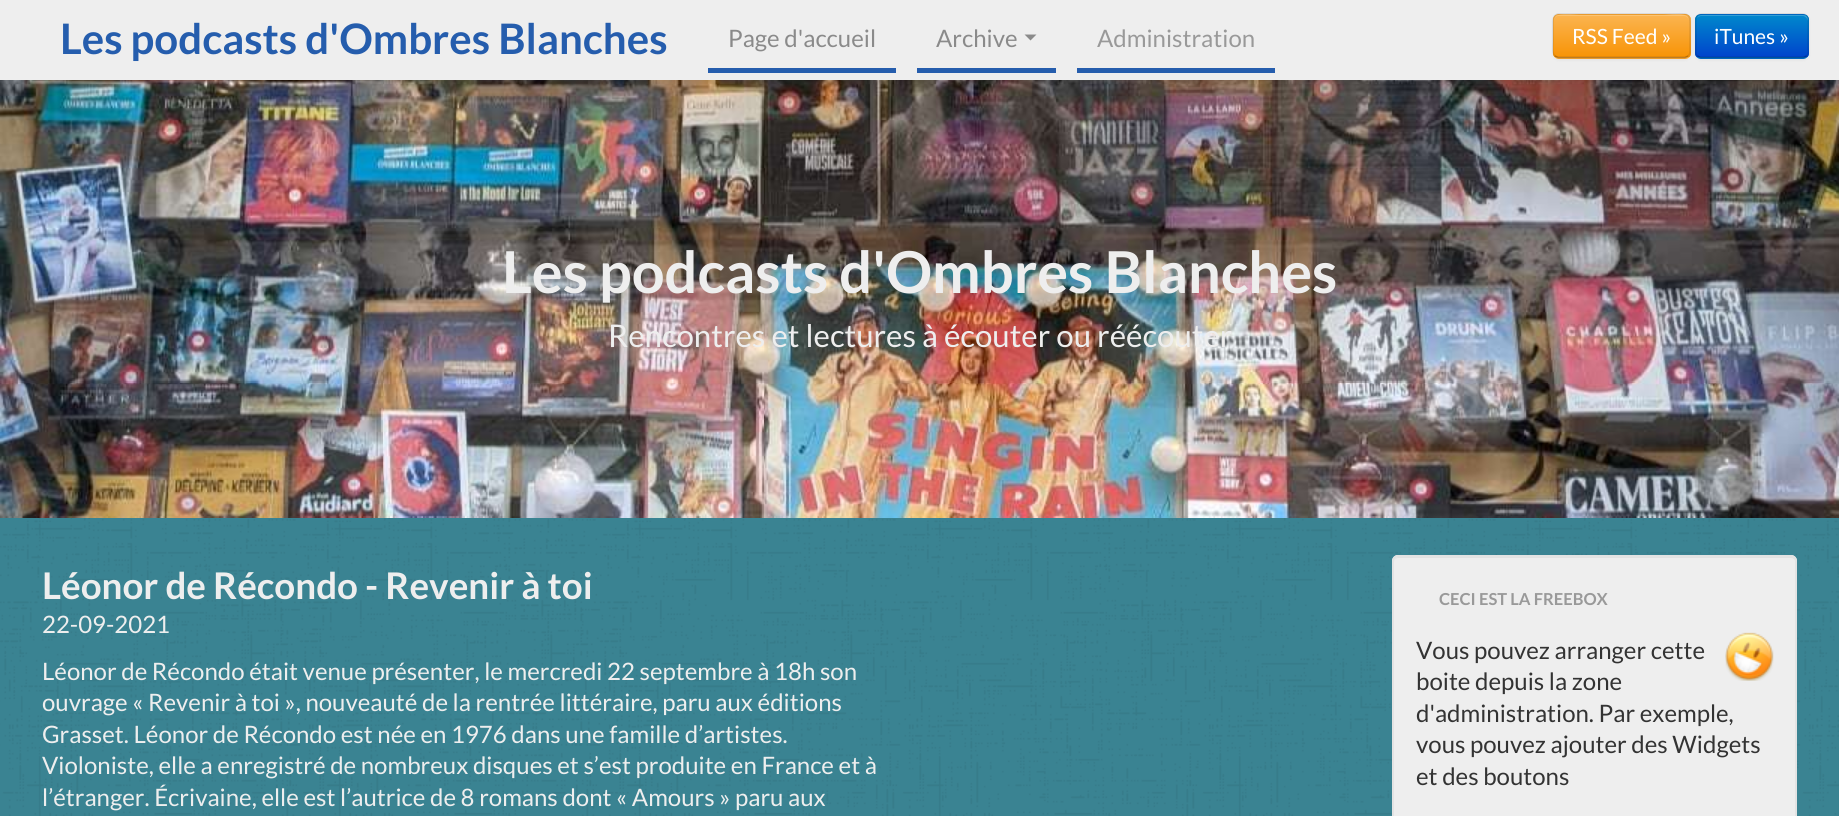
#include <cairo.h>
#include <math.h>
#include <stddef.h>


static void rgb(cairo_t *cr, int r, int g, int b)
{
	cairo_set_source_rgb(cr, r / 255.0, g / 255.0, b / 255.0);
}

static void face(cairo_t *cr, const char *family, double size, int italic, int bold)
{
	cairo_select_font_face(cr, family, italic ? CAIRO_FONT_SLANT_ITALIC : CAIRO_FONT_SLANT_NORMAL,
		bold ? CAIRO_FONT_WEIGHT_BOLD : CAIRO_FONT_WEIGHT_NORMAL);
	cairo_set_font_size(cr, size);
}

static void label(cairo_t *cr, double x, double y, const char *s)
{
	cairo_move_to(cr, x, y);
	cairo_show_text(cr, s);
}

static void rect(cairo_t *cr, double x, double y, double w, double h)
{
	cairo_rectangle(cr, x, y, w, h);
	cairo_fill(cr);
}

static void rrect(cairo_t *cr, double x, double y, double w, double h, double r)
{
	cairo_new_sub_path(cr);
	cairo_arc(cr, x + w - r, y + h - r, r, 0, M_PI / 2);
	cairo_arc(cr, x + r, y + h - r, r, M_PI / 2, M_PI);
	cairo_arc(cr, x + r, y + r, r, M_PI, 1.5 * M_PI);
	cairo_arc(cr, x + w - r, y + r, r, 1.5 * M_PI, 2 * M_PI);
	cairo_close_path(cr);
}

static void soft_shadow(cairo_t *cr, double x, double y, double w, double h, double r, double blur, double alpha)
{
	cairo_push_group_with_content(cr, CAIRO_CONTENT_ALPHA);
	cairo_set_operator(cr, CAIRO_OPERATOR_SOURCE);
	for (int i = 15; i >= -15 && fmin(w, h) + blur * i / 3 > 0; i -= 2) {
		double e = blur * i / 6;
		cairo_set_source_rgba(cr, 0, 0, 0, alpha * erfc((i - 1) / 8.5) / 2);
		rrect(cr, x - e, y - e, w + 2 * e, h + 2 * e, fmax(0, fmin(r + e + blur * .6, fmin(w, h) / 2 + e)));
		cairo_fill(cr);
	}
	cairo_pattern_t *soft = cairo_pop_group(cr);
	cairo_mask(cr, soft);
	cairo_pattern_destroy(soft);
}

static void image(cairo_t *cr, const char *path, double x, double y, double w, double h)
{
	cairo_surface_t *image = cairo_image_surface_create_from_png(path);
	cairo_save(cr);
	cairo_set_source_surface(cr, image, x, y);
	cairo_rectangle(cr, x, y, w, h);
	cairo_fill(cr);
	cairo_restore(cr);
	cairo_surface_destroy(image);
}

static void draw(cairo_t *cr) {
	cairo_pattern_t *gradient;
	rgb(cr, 58, 131, 146);
	cairo_paint(cr);
	image(cr, "image0.png", 0, 518, 1839, 298);
	image(cr, "image1.png", 0, 80, 1839, 438);
	rgb(cr, 0, 0, 0);
	soft_shadow(cr, 0, 2, 1839, 79, 0, 7.5, 0.1);
	rgb(cr, 238, 238, 238);
	rect(cr, 0, 0, 1839, 80);
	face(cr, "Lato", 42, 0, 1);
	rgb(cr, 37, 93, 173);
	label(cr, 60, 54, "Les podcasts d'Ombres Blanches");
	rect(cr, 708, 68, 188, 5);
	face(cr, "Lato", 24, 0, 0);
	rgb(cr, 138, 138, 138);
	label(cr, 728, 47, "Page d'accueil");
	rgb(cr, 37, 93, 173);
	rect(cr, 917, 68, 139, 5);
	rgb(cr, 138, 138, 138);
	label(cr, 936, 47, "Archive");
	cairo_new_path(cr);
	cairo_move_to(cr, 1024.5, 34.5);
	cairo_line_to(cr, 1036.5, 34.5);
	cairo_line_to(cr, 1030.5, 40.5);
	cairo_close_path(cr);
	cairo_fill(cr);
	rgb(cr, 37, 93, 173);
	rect(cr, 1077, 68, 198, 5);
	rgb(cr, 153, 153, 153);
	label(cr, 1097, 47, "Administration");
	rgb(cr, 0, 0, 0);
	soft_shadow(cr, 1553, 15, 138, 45, 6, 1.5, 0.05);
	rgb(cr, 250, 167, 50);
	rrect(cr, 1553, 14, 138, 45, 6);
	cairo_fill(cr);
	cairo_save(cr);
	rrect(cr, 1553, 14, 138, 45, 6);
	cairo_clip(cr);
	gradient = cairo_pattern_create_linear(1622, 15, 1622, 57);
	cairo_pattern_add_color_stop_rgba(gradient, 0, 0.984, 0.706, 0.314, 1);
	cairo_pattern_add_color_stop_rgba(gradient, 1, 0.973, 0.58, 0.024, 1);
	cairo_set_source(cr, gradient);
	cairo_pattern_destroy(gradient);
	rect(cr, 1553, 15, 138, 42);
	cairo_restore(cr);
	cairo_set_source_rgba(cr, 1, 1, 1, 0.2);
	cairo_new_path(cr);
	cairo_move_to(cr, 1558, 16);
	cairo_line_to(cr, 1684, 16);
	cairo_curve_to(cr, 1687, 16, 1689, 19, 1689, 21);
	cairo_curve_to(cr, 1689, 10, 1667, 15, 1663, 15);
	cairo_line_to(cr, 1580, 15);
	cairo_curve_to(cr, 1576, 15, 1554, 10, 1554, 21);
	cairo_curve_to(cr, 1554, 19, 1556, 16, 1558, 16);
	cairo_close_path(cr);
	cairo_fill(cr);
	cairo_new_path(cr);
	cairo_move_to(cr, 1688, 56);
	cairo_line_to(cr, 1685, 57.5);
	cairo_line_to(cr, 1558, 57.5);
	cairo_line_to(cr, 1555, 56);
	cairo_set_source_rgba(cr, 0, 0, 0, 0.25);
	cairo_set_line_width(cr, 1.5);
	cairo_stroke(cr);
	cairo_new_path(cr);
	cairo_move_to(cr, 1555, 56);
	cairo_curve_to(cr, 1551.5, 53, 1553, 45, 1553, 41.5);
	cairo_line_to(cr, 1553, 25);
	cairo_curve_to(cr, 1553, 21, 1552.5, 14.5, 1558.5, 14);
	cairo_line_to(cr, 1663.5, 14);
	cairo_curve_to(cr, 1692.5, 14, 1690, 9.5, 1690, 36);
	cairo_line_to(cr, 1690, 47);
	cairo_curve_to(cr, 1690, 50, 1690.5, 54, 1688, 56);
	cairo_set_source_rgba(cr, 0, 0, 0, 0.1);
	cairo_stroke(cr);
	face(cr, "Lato", 21, 0, 0);
	rgb(cr, 255, 255, 255);
	label(cr, 1572, 44, "RSS Feed »");
	rgb(cr, 0, 0, 0);
	soft_shadow(cr, 1695, 15, 114, 45, 6, 1.5, 0.05);
	rgb(cr, 0, 109, 204);
	rrect(cr, 1695, 14, 114, 45, 6);
	cairo_fill(cr);
	cairo_save(cr);
	rrect(cr, 1695, 14, 114, 45, 6);
	cairo_clip(cr);
	gradient = cairo_pattern_create_linear(1752, 15, 1752, 57);
	cairo_pattern_add_color_stop_rgba(gradient, 0, 0, 0.533, 0.8, 1);
	cairo_pattern_add_color_stop_rgba(gradient, 1, 0, 0.267, 0.8, 1);
	cairo_set_source(cr, gradient);
	cairo_pattern_destroy(gradient);
	rect(cr, 1695, 15, 114, 42);
	cairo_restore(cr);
	cairo_set_source_rgba(cr, 1, 1, 1, 0.2);
	cairo_new_path(cr);
	cairo_move_to(cr, 1701, 16);
	cairo_line_to(cr, 1803, 16);
	cairo_curve_to(cr, 1805, 16, 1808, 19, 1808, 21);
	cairo_line_to(cr, 1808, 20);
	cairo_curve_to(cr, 1808, 17, 1806, 15, 1803, 15);
	cairo_line_to(cr, 1702, 15);
	cairo_curve_to(cr, 1700, 15, 1698, 16, 1697, 18);
	cairo_curve_to(cr, 1698, 17, 1700, 16, 1701, 16);
	cairo_close_path(cr);
	cairo_fill(cr);
	cairo_new_path(cr);
	cairo_move_to(cr, 1806.5, 56);
	cairo_line_to(cr, 1803.5, 57.5);
	cairo_line_to(cr, 1700.5, 57.5);
	cairo_line_to(cr, 1697.5, 56);
	cairo_set_source_rgba(cr, 0, 0, 0, 0.25);
	cairo_stroke(cr);
	cairo_new_path(cr);
	cairo_move_to(cr, 1697.5, 56);
	cairo_curve_to(cr, 1695, 54, 1696, 50, 1696, 47);
	cairo_line_to(cr, 1696, 36);
	cairo_curve_to(cr, 1696, 11, 1692, 14, 1718, 14);
	cairo_line_to(cr, 1786, 14);
	cairo_curve_to(cr, 1812, 14, 1808, 11, 1808, 36);
	cairo_line_to(cr, 1808, 47);
	cairo_curve_to(cr, 1808, 50, 1809, 54, 1806.5, 56);
	cairo_set_source_rgba(cr, 0, 0, 0, 0.1);
	cairo_stroke(cr);
	rgb(cr, 255, 255, 255);
	label(cr, 1714, 44, "iTunes »");
	face(cr, "Lato", 57.75, 0, 1);
	rgb(cr, 238, 238, 238);
	label(cr, 502, 293, "Les podcasts d'Ombres Blanches");
	face(cr, "Lato", 31.25, 0, 0);
	label(cr, 608, 347, "Rencontres et lectures à écouter ou réécouter");
	face(cr, "Lato", 36.75, 0, 1);
	label(cr, 42, 599, "Léonor de Récondo - Revenir à toi");
	face(cr, "Lato", 24, 0, 0);
	label(cr, 42, 633, "22-09-2021");
	label(cr, 42, 680, "Léonor de Récondo était venue présenter, le mercredi 22 septembre à 18h son");
	label(cr, 42, 711, "ouvrage « Revenir à toi », nouveauté de la rentrée littéraire, paru aux éditions");
	label(cr, 42, 743, "Grasset. Léonor de Récondo est née en 1976 dans une famille d’artistes.");
	label(cr, 42, 774, "Violoniste, elle a enregistré de nombreux disques et s’est produite en France et à");
	label(cr, 42, 806, "l’étranger. Écrivaine, elle est l’autrice de 8 romans dont « Amours » paru aux");
	rrect(cr, 1392, 555, 405, 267, 6);
	cairo_fill(cr);
	rgb(cr, 226, 226, 226);
	cairo_new_path(cr);
	cairo_move_to(cr, 1398, 558);
	cairo_line_to(cr, 1791, 558);
	cairo_curve_to(cr, 1793, 558, 1796, 560, 1796, 562);
	cairo_curve_to(cr, 1796, 559, 1794, 557, 1791, 557);
	cairo_line_to(cr, 1399, 557);
	cairo_curve_to(cr, 1396, 557, 1394, 559, 1394, 562);
	cairo_curve_to(cr, 1394, 560, 1396, 558, 1398, 558);
	cairo_close_path(cr);
	cairo_fill(cr);
	rrect(cr, 1393, 556, 403, 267, 5);
	rgb(cr, 227, 227, 227);
	cairo_set_line_width(cr, 2);
	cairo_stroke(cr);
	face(cr, "Lato", 16.5, 0, 1);
	rgb(cr, 153, 153, 153);
	label(cr, 1439, 605, "CECI EST LA FREEBOX");
	face(cr, "Lato", 24, 0, 0);
	rgb(cr, 51, 51, 51);
	label(cr, 1416, 659, "Vous pouvez arranger cette");
	image(cr, "image2.png", 1725, 632, 49, 49);
	label(cr, 1416, 690, "boite depuis la zone");
	label(cr, 1416, 722, "d'administration. Par exemple,");
	label(cr, 1416, 753, "vous pouvez ajouter des Widgets");
	label(cr, 1416, 785, "et des boutons");
}

int main(void) {
	cairo_surface_t *surface = cairo_image_surface_create(CAIRO_FORMAT_RGB24, 1839, 816);
	cairo_t *cr = cairo_create(surface);
	cairo_font_options_t *options = cairo_font_options_create();
	cairo_font_options_set_hint_metrics(options, CAIRO_HINT_METRICS_OFF);
	cairo_font_options_set_hint_style(options, CAIRO_HINT_STYLE_NONE);
	cairo_set_font_options(cr, options);
	cairo_set_miter_limit(cr, 4);
	draw(cr);
	cairo_surface_write_to_png(surface, "render.png");
	cairo_font_options_destroy(options);
	cairo_destroy(cr);
	cairo_surface_destroy(surface);
	return 0;
}
